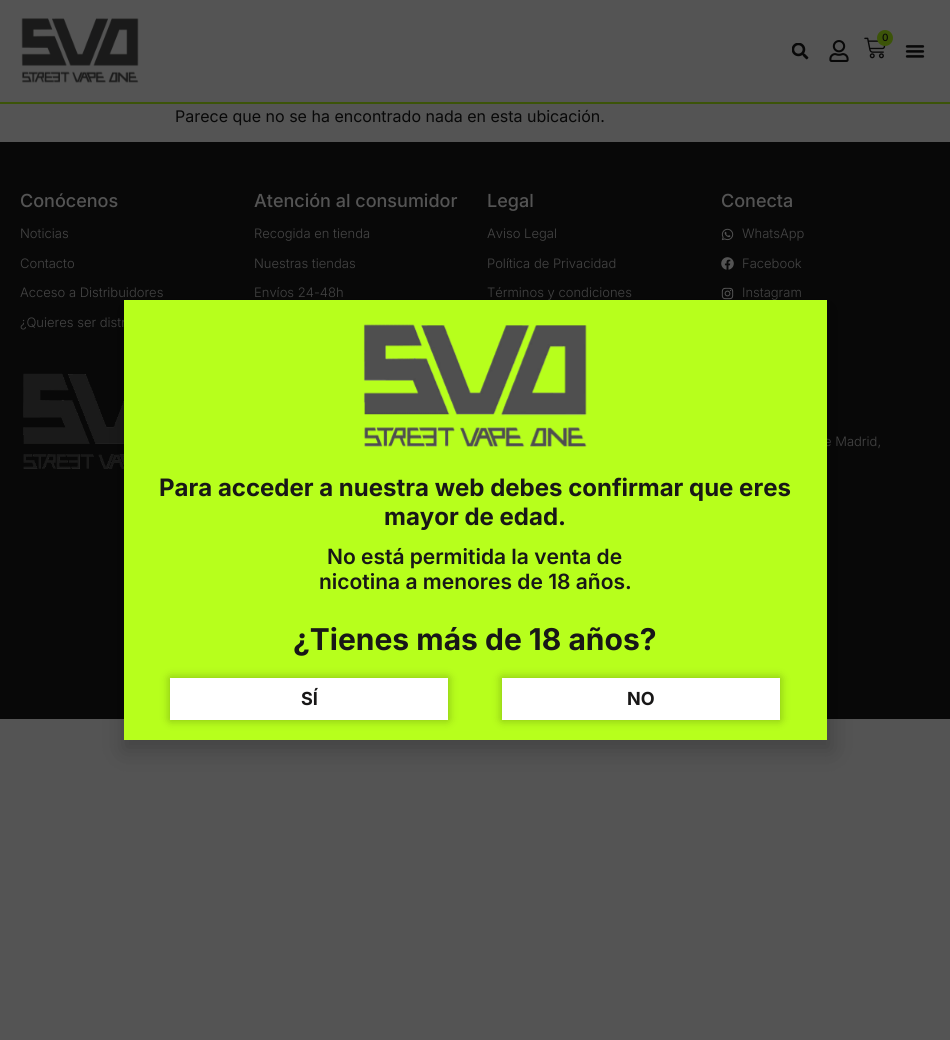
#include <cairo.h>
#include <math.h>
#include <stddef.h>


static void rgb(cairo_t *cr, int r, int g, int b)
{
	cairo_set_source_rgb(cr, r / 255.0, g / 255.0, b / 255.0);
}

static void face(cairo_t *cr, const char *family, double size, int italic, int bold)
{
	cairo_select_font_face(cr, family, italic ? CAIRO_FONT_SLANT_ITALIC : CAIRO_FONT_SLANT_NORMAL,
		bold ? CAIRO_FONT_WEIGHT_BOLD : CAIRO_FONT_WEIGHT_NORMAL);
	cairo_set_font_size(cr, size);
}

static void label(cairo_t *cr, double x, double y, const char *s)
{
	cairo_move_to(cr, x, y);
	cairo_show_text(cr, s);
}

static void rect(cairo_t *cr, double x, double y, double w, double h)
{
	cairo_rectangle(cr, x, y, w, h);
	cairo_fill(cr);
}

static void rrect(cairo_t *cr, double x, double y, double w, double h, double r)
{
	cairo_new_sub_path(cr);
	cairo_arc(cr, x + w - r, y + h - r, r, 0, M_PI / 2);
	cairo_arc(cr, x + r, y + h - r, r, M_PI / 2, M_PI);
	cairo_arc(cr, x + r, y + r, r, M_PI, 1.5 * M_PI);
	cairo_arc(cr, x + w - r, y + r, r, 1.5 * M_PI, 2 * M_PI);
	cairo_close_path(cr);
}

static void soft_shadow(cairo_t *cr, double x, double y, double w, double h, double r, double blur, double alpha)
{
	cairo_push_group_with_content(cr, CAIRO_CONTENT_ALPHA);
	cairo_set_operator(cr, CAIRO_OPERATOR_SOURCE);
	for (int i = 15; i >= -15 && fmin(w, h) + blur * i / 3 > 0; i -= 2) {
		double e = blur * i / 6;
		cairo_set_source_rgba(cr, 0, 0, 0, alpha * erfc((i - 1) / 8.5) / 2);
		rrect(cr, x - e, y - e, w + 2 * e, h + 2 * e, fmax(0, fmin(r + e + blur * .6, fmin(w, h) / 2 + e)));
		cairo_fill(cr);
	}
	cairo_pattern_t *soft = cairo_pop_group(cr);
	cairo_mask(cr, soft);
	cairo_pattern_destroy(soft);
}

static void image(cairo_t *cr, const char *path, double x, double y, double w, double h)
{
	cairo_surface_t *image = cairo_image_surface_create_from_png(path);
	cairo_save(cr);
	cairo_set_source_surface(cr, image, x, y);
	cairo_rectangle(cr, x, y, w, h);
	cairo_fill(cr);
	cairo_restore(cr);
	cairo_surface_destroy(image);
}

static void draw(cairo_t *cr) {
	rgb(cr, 84, 84, 84);
	cairo_paint(cr);
	rgb(cr, 60, 84, 9);
	rect(cr, 0, 102, 950, 2);
	image(cr, "image0.png", 21, 18, 118, 65);
	image(cr, "image1.png", 864, 37, 22, 22);
	cairo_arc(cr, 885, 38, 8, 0, 2 * M_PI);
	cairo_fill(cr);
	face(cr, "Inter Medium", 10, 0, 0);
	rgb(cr, 8, 8, 8);
	label(cr, 882, 41, "0");
	image(cr, "image2.png", 792, 43, 17, 17);
	image(cr, "image3.png", 829, 40, 20, 22);
	image(cr, "image4.png", 905, 45, 20, 13);
	face(cr, "Inter", 16, 0, 0);
	label(cr, 175, 122, "Parece que no se ha encontrado nada en esta ubicación.");
	rect(cr, 0, 142, 950, 577);
	face(cr, "Inter Medium", 18, 0, 0);
	rgb(cr, 84, 84, 84);
	label(cr, 20, 207, "Conócenos");
	face(cr, "Inter Light", 13, 0, 0);
	rgb(cr, 68, 68, 68);
	label(cr, 20, 238, "Noticias");
	label(cr, 20, 268, "Contacto");
	label(cr, 20, 297, "Acceso a Distribuidores");
	label(cr, 20, 327, "¿Quieres ser distr");
	face(cr, "Inter Medium", 18, 0, 0);
	rgb(cr, 84, 84, 84);
	label(cr, 254, 207, "Atención al consumidor");
	face(cr, "Inter Light", 13, 0, 0);
	rgb(cr, 68, 68, 68);
	label(cr, 254, 238, "Recogida en tienda");
	label(cr, 254, 268, "Nuestras tiendas");
	label(cr, 254, 297, "Envíos 24-48h");
	face(cr, "Inter Medium", 18, 0, 0);
	rgb(cr, 84, 84, 84);
	label(cr, 487, 207, "Legal");
	face(cr, "Inter Light", 13, 0, 0);
	rgb(cr, 68, 68, 68);
	label(cr, 487, 238, "Aviso Legal");
	label(cr, 487, 268, "Política de Privacidad");
	label(cr, 487, 297, "Términos y condiciones");
	face(cr, "Inter Medium", 18, 0, 0);
	rgb(cr, 84, 84, 84);
	label(cr, 721, 207, "Conecta");
	image(cr, "image5.png", 721, 228, 13, 13);
	face(cr, "Inter Light", 13, 0, 0);
	rgb(cr, 68, 68, 68);
	label(cr, 742, 238, "WhatsApp");
	image(cr, "image6.png", 721, 257, 13, 13);
	label(cr, 742, 268, "Facebook");
	image(cr, "image7.png", 721, 287, 13, 13);
	label(cr, 742, 297, "Instagram");
	image(cr, "image8.png", 23, 373, 101, 96);
	label(cr, 824, 446, "e Madrid,");
	rgb(cr, 0, 0, 0);
	soft_shadow(cr, 123, 305, 709, 446, 0, 11.5, 0.2);
	rgb(cr, 183, 255, 28);
	rect(cr, 124, 300, 703, 440);
	image(cr, "image9.png", 363, 324, 224, 123);
	face(cr, "Inter", 24, 0, 1);
	rgb(cr, 24, 23, 23);
	label(cr, 159, 496, "Para acceder a nuestra web debes confirmar que eres");
	label(cr, 384, 525, "mayor de edad.");
	face(cr, "Inter SemiBold", 21, 0, 0);
	label(cr, 327, 564, "No está permitida la venta de");
	label(cr, 319, 589, "nicotina a menores de 18 años.");
	face(cr, "Inter", 30, 0, 1);
	label(cr, 293, 650, "¿Tienes más de 18 años?");
	rgb(cr, 0, 0, 0);
	soft_shadow(cr, 170, 678, 278, 42, 0, 5, 0.28);
	rgb(cr, 255, 255, 255);
	rect(cr, 170, 678, 278, 42);
	face(cr, "Inter", 18, 0, 1);
	rgb(cr, 24, 23, 23);
	label(cr, 301, 705, "SÍ");
	rgb(cr, 0, 0, 0);
	soft_shadow(cr, 502, 678, 278, 42, 0, 5, 0.28);
	rgb(cr, 255, 255, 255);
	rect(cr, 502, 678, 278, 42);
	rgb(cr, 24, 23, 23);
	label(cr, 627, 705, "NO");
}

int main(void) {
	cairo_surface_t *surface = cairo_image_surface_create(CAIRO_FORMAT_RGB24, 950, 1040);
	cairo_t *cr = cairo_create(surface);
	cairo_font_options_t *options = cairo_font_options_create();
	cairo_font_options_set_hint_metrics(options, CAIRO_HINT_METRICS_OFF);
	cairo_font_options_set_hint_style(options, CAIRO_HINT_STYLE_NONE);
	cairo_set_font_options(cr, options);
	cairo_set_miter_limit(cr, 4);
	draw(cr);
	cairo_surface_write_to_png(surface, "render.png");
	cairo_font_options_destroy(options);
	cairo_destroy(cr);
	cairo_surface_destroy(surface);
	return 0;
}
